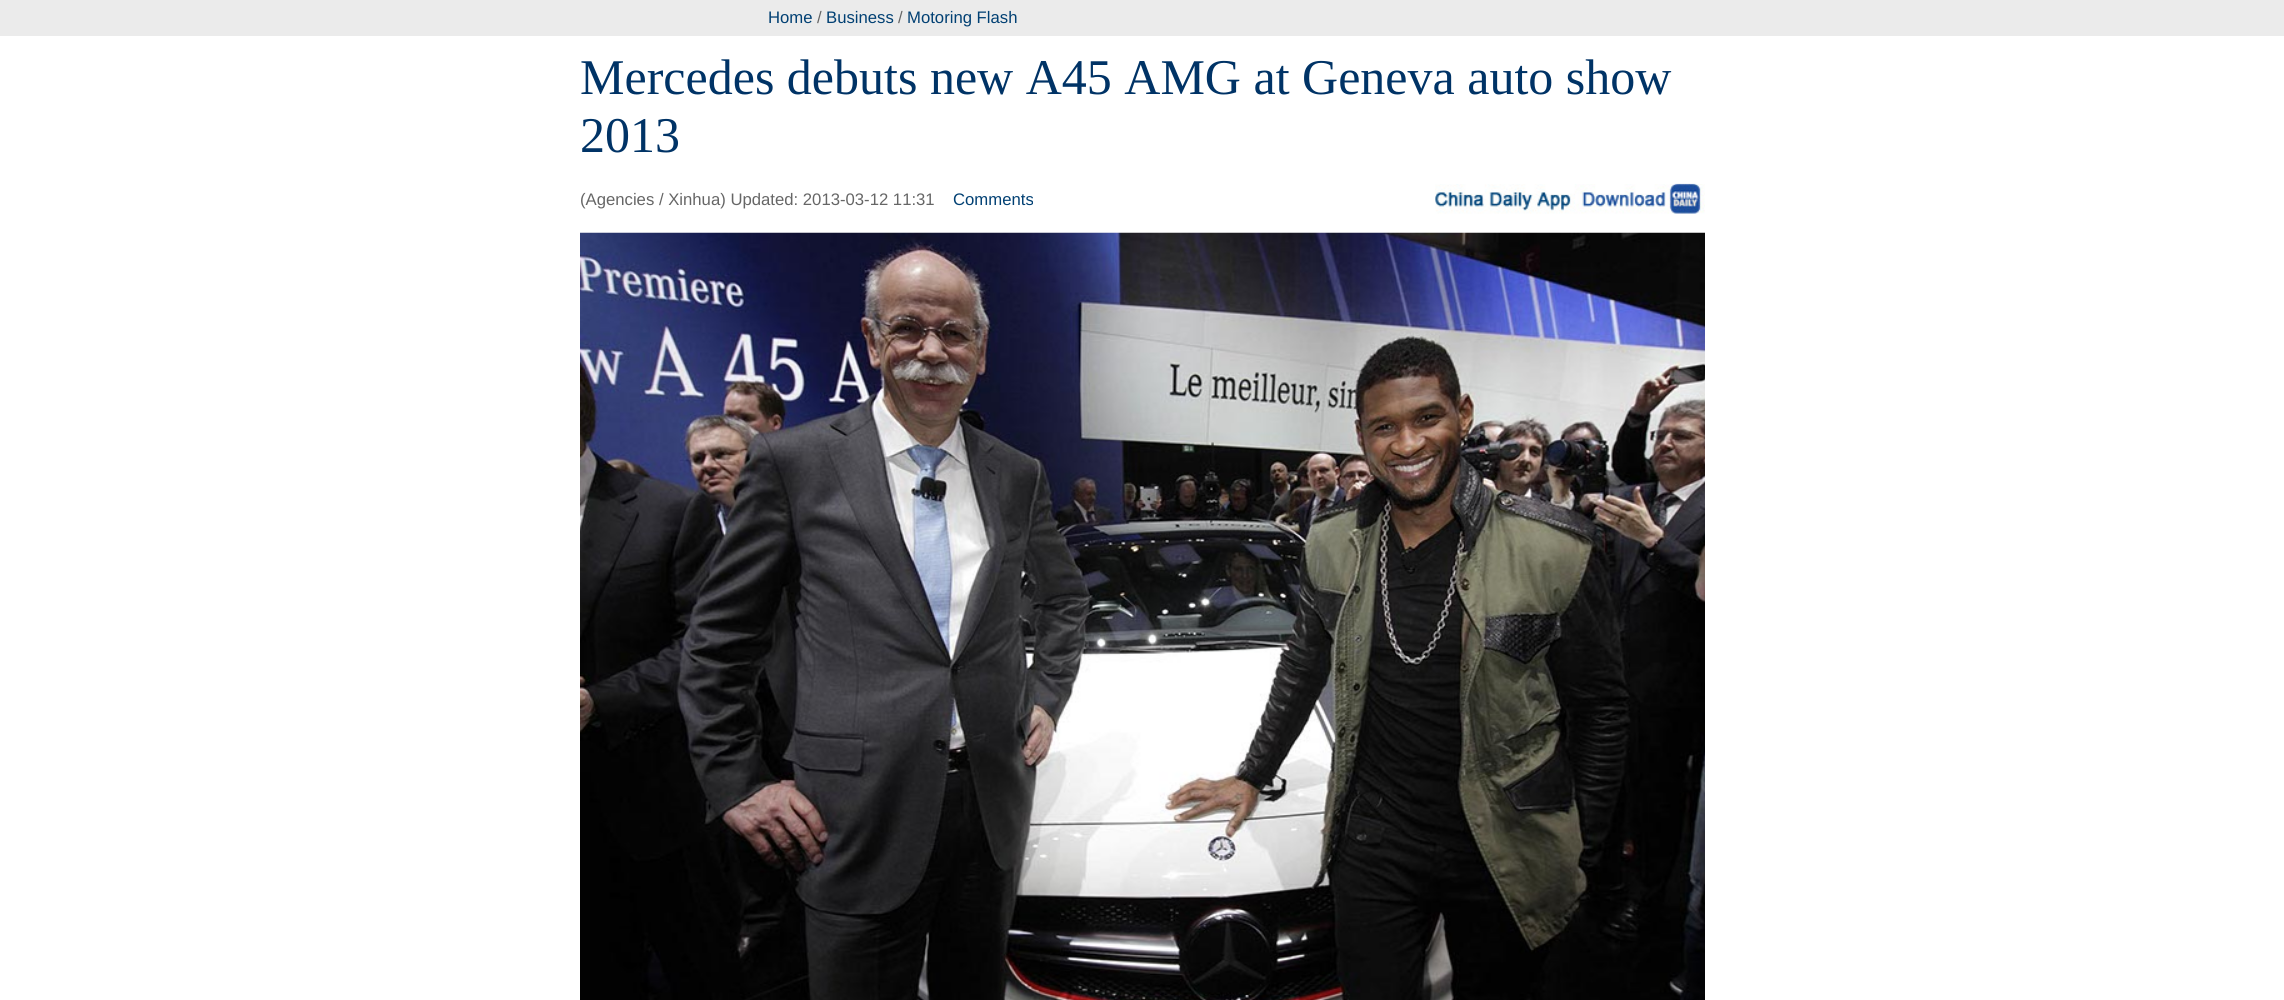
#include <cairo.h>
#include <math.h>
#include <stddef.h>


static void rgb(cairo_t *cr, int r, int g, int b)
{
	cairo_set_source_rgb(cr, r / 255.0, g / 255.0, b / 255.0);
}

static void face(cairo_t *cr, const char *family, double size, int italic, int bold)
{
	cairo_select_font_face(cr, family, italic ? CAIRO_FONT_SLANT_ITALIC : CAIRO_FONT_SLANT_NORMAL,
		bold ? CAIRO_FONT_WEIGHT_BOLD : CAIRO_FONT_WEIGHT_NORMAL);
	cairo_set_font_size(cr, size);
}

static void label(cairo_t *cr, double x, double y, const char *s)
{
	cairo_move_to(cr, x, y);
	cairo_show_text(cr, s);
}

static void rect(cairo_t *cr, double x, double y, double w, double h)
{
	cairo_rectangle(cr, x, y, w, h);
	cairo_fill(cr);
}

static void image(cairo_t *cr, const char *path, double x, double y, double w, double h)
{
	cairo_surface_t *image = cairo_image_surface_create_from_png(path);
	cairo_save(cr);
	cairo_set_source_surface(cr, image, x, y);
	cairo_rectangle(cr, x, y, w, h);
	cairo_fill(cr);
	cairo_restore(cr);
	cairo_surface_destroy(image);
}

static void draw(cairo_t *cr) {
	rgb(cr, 255, 255, 255);
	cairo_paint(cr);
	rgb(cr, 235, 235, 235);
	rect(cr, 0, 0, 2284, 36);
	face(cr, "Liberation Sans", 16.7, 0, 0);
	rgb(cr, 1, 64, 115);
	label(cr, 768, 23, "Home");
	rgb(cr, 102, 102, 102);
	label(cr, 817, 23, "/");
	rgb(cr, 1, 64, 115);
	label(cr, 826, 23, "Business");
	rgb(cr, 102, 102, 102);
	label(cr, 898, 23, "/");
	rgb(cr, 1, 64, 115);
	label(cr, 907, 23, "Motoring Flash");
	face(cr, "Liberation Serif", 50, 0, 0);
	rgb(cr, 0, 51, 102);
	label(cr, 580, 94, "Mercedes debuts new A45 AMG at Geneva auto show");
	label(cr, 580, 152, "2013");
	face(cr, "Liberation Sans", 16.7, 0, 0);
	rgb(cr, 102, 102, 102);
	label(cr, 580, 205, "(Agencies / Xinhua) Updated: 2013-03-12 11:31");
	rgb(cr, 1, 64, 115);
	label(cr, 953, 205, "Comments");
	image(cr, "image0.png", 1435, 183, 270, 31);
	image(cr, "image1.png", 580, 232, 1125, 768);
}

int main(void) {
	cairo_surface_t *surface = cairo_image_surface_create(CAIRO_FORMAT_RGB24, 2284, 1000);
	cairo_t *cr = cairo_create(surface);
	cairo_font_options_t *options = cairo_font_options_create();
	cairo_font_options_set_hint_metrics(options, CAIRO_HINT_METRICS_OFF);
	cairo_font_options_set_hint_style(options, CAIRO_HINT_STYLE_NONE);
	cairo_set_font_options(cr, options);
	cairo_set_miter_limit(cr, 4);
	draw(cr);
	cairo_surface_write_to_png(surface, "render.png");
	cairo_font_options_destroy(options);
	cairo_destroy(cr);
	cairo_surface_destroy(surface);
	return 0;
}
